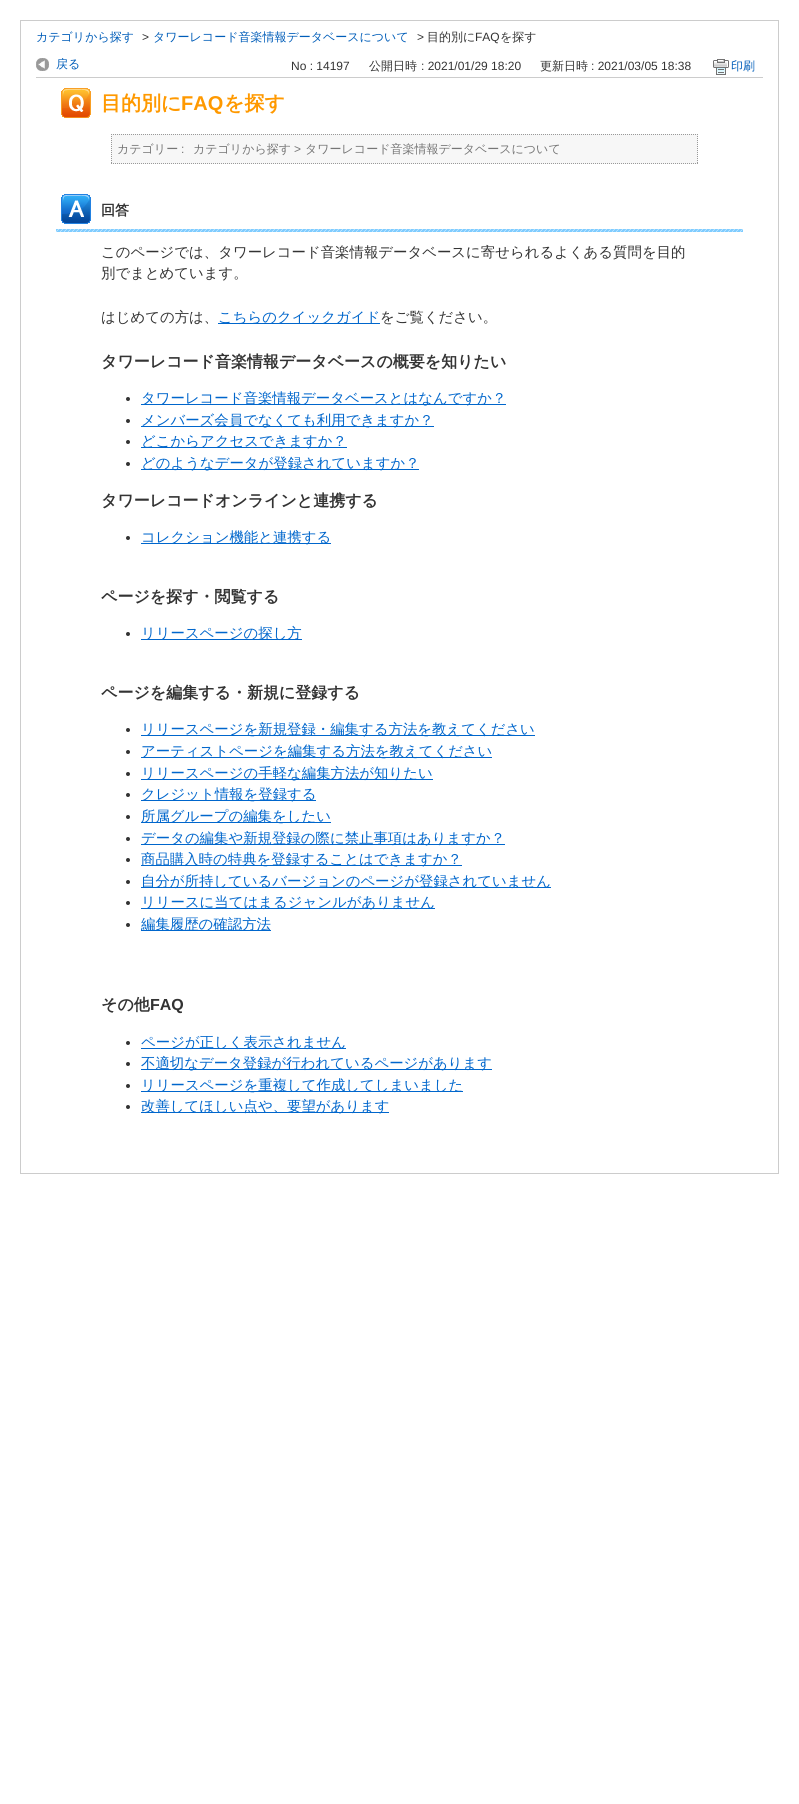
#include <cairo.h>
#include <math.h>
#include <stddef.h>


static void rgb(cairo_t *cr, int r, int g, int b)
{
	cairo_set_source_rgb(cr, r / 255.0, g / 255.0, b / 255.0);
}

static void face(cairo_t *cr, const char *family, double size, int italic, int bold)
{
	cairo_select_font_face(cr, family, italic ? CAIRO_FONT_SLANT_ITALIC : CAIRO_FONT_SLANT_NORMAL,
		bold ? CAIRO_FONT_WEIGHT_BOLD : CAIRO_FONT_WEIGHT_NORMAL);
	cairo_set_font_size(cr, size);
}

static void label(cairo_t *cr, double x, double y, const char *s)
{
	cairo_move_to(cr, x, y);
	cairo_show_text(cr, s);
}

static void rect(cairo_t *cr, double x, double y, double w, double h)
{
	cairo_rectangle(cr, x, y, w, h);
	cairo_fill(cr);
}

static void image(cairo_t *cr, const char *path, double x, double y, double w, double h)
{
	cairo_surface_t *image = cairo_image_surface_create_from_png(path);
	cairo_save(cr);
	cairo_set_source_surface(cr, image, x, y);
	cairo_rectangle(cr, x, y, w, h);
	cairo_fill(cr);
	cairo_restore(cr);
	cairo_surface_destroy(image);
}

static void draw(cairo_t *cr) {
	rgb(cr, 255, 255, 255);
	cairo_paint(cr);
	cairo_rectangle(cr, 20.5, 20.5, 758, 1153);
	rgb(cr, 204, 204, 204);
	cairo_set_line_width(cr, 1);
	cairo_stroke(cr);
	face(cr, "WenQuanYi Zen Hei Medium", 12, 0, 0);
	rgb(cr, 0, 93, 185);
	label(cr, 36, 41, "カテゴリから探す");
	face(cr, "Liberation Sans", 12, 0, 0);
	rgb(cr, 51, 51, 51);
	label(cr, 142, 41, ">");
	face(cr, "WenQuanYi Zen Hei Medium", 12, 0, 0);
	rgb(cr, 0, 93, 185);
	label(cr, 153, 41, "タワーレコード音楽情報データベースについて");
	face(cr, "Liberation Sans", 12, 0, 0);
	rgb(cr, 51, 51, 51);
	label(cr, 417, 41, ">");
	face(cr, "WenQuanYi Zen Hei Medium", 12, 0, 0);
	label(cr, 427, 41, "目的別に");
	face(cr, "Liberation Sans", 12, 0, 0);
	label(cr, 475, 41, "FAQ");
	face(cr, "WenQuanYi Zen Hei Medium", 12, 0, 0);
	label(cr, 500, 41, "を探す");
	rgb(cr, 204, 204, 204);
	rect(cr, 36, 77, 727, 1);
	image(cr, "image0.png", 36, 58, 13, 13);
	rgb(cr, 0, 93, 185);
	label(cr, 56, 68, "戻る");
	face(cr, "Liberation Sans", 12, 0, 0);
	rgb(cr, 51, 51, 51);
	label(cr, 291, 70, "No : 14197");
	face(cr, "WenQuanYi Zen Hei Medium", 12, 0, 0);
	label(cr, 369, 70, "公開日時");
	face(cr, "Liberation Sans", 12, 0, 0);
	label(cr, 421, 70, ": 2021/01/29 18:20");
	face(cr, "WenQuanYi Zen Hei Medium", 12, 0, 0);
	label(cr, 540, 70, "更新日時");
	face(cr, "Liberation Sans", 12, 0, 0);
	label(cr, 591, 70, ": 2021/03/05 18:38");
	image(cr, "image1.png", 713, 59, 16, 16);
	face(cr, "WenQuanYi Zen Hei Medium", 12, 0, 0);
	rgb(cr, 0, 93, 185);
	label(cr, 731, 70, "印刷");
	image(cr, "image2.png", 61, 88, 30, 30);
	face(cr, "WenQuanYi Zen Hei", 20, 0, 1);
	rgb(cr, 255, 153, 0);
	label(cr, 101, 110, "目的別に");
	face(cr, "Liberation Sans", 20, 0, 1);
	label(cr, 181, 110, "FAQ");
	face(cr, "WenQuanYi Zen Hei", 20, 0, 1);
	label(cr, 224, 110, "を探す");
	rgb(cr, 247, 247, 247);
	rect(cr, 111, 134, 587, 30);
	cairo_new_path(cr);
	cairo_move_to(cr, 111, 134.5);
	cairo_line_to(cr, 698, 134.5);
	rgb(cr, 153, 153, 153);
	cairo_set_dash(cr, (double[]){1, 1}, 2, 0);
	cairo_stroke(cr);
	cairo_new_path(cr);
	cairo_move_to(cr, 697.5, 134);
	cairo_line_to(cr, 697.5, 164);
	cairo_stroke(cr);
	cairo_new_path(cr);
	cairo_move_to(cr, 111, 163.5);
	cairo_line_to(cr, 698, 163.5);
	cairo_stroke(cr);
	cairo_new_path(cr);
	cairo_move_to(cr, 111.5, 134);
	cairo_line_to(cr, 111.5, 164);
	cairo_stroke(cr);
	face(cr, "WenQuanYi Zen Hei Medium", 12, 0, 0);
	rgb(cr, 118, 118, 118);
	label(cr, 117, 153, "カテゴリー");
	face(cr, "Liberation Sans", 12, 0, 0);
	label(cr, 181, 153, ":");
	face(cr, "WenQuanYi Zen Hei Medium", 12, 0, 0);
	label(cr, 193, 153, "カテゴリから探す");
	face(cr, "Liberation Sans", 12, 0, 0);
	label(cr, 294, 153, ">");
	face(cr, "WenQuanYi Zen Hei Medium", 12, 0, 0);
	label(cr, 305, 153, "タワーレコード音楽情報データベースについて");
	image(cr, "image3.png", 56, 229, 687, 3);
	image(cr, "image4.png", 61, 194, 30, 30);
	face(cr, "WenQuanYi Zen Hei", 14, 0, 1);
	rgb(cr, 51, 51, 51);
	label(cr, 101, 215, "回答");
	face(cr, "WenQuanYi Zen Hei Medium", 14.4, 0, 0);
	label(cr, 101, 257, "このページでは、タワーレコード音楽情報データベースに寄せられるよくある質問を目的");
	label(cr, 101, 278, "別でまとめています。");
	label(cr, 101, 322, "はじめての方は、");
	rgb(cr, 0, 102, 204);
	rect(cr, 218, 323, 162, 1);
	label(cr, 218, 322, "こちらのクイックガイド");
	rgb(cr, 51, 51, 51);
	label(cr, 380, 322, "をご覧ください。");
	face(cr, "WenQuanYi Zen Hei", 16, 0, 1);
	label(cr, 101, 367, "タワーレコード音楽情報データベースの概要を知りたい");
	cairo_new_path(cr);
	cairo_arc(cr, 128, 399, 2, 0, 2 * M_PI);
	cairo_fill(cr);
	rgb(cr, 0, 102, 204);
	rect(cr, 141, 404, 365, 1);
	face(cr, "WenQuanYi Zen Hei Medium", 14.4, 0, 0);
	label(cr, 141, 403, "タワーレコード音楽情報データベースとはなんですか？");
	rgb(cr, 51, 51, 51);
	cairo_new_path(cr);
	cairo_arc(cr, 128, 421, 2, 0, 2 * M_PI);
	cairo_fill(cr);
	rgb(cr, 0, 102, 204);
	rect(cr, 141, 426, 293, 1);
	label(cr, 141, 425, "メンバーズ会員でなくても利用できますか？");
	rgb(cr, 51, 51, 51);
	cairo_new_path(cr);
	cairo_arc(cr, 128, 442, 2, 0, 2 * M_PI);
	cairo_fill(cr);
	rgb(cr, 0, 102, 204);
	rect(cr, 141, 447, 206, 1);
	label(cr, 141, 446, "どこからアクセスできますか？");
	rgb(cr, 51, 51, 51);
	cairo_new_path(cr);
	cairo_arc(cr, 128, 464, 2, 0, 2 * M_PI);
	cairo_fill(cr);
	rgb(cr, 0, 102, 204);
	rect(cr, 141, 469, 278, 1);
	label(cr, 141, 468, "どのようなデータが登録されていますか？");
	face(cr, "WenQuanYi Zen Hei", 16, 0, 1);
	rgb(cr, 51, 51, 51);
	label(cr, 101, 506, "タワーレコードオンラインと連携する");
	cairo_new_path(cr);
	cairo_arc(cr, 128, 538, 2, 0, 2 * M_PI);
	cairo_fill(cr);
	rgb(cr, 0, 102, 204);
	rect(cr, 141, 543, 190, 1);
	face(cr, "WenQuanYi Zen Hei Medium", 14.4, 0, 0);
	label(cr, 141, 542, "コレクション機能と連携する");
	face(cr, "WenQuanYi Zen Hei", 16, 0, 1);
	rgb(cr, 51, 51, 51);
	label(cr, 101, 602, "ページを探す・閲覧する");
	cairo_new_path(cr);
	cairo_arc(cr, 128, 634, 2, 0, 2 * M_PI);
	cairo_fill(cr);
	rgb(cr, 0, 102, 204);
	rect(cr, 141, 639, 161, 1);
	face(cr, "WenQuanYi Zen Hei Medium", 14.4, 0, 0);
	label(cr, 141, 638, "リリースページの探し方");
	face(cr, "WenQuanYi Zen Hei", 16, 0, 1);
	rgb(cr, 51, 51, 51);
	label(cr, 101, 698, "ページを編集する・新規に登録する");
	cairo_new_path(cr);
	cairo_arc(cr, 128, 730, 2, 0, 2 * M_PI);
	cairo_fill(cr);
	rgb(cr, 0, 102, 204);
	rect(cr, 141, 735, 394, 1);
	face(cr, "WenQuanYi Zen Hei Medium", 14.4, 0, 0);
	label(cr, 141, 734, "リリースページを新規登録・編集する方法を教えてください");
	rgb(cr, 51, 51, 51);
	cairo_new_path(cr);
	cairo_arc(cr, 128, 752, 2, 0, 2 * M_PI);
	cairo_fill(cr);
	rgb(cr, 0, 102, 204);
	rect(cr, 141, 757, 351, 1);
	label(cr, 141, 756, "アーティストページを編集する方法を教えてください");
	rgb(cr, 51, 51, 51);
	cairo_new_path(cr);
	cairo_arc(cr, 128, 774, 2, 0, 2 * M_PI);
	cairo_fill(cr);
	rgb(cr, 0, 102, 204);
	rect(cr, 141, 779, 292, 1);
	label(cr, 141, 778, "リリースページの手軽な編集方法が知りたい");
	rgb(cr, 51, 51, 51);
	cairo_new_path(cr);
	cairo_arc(cr, 128, 795, 2, 0, 2 * M_PI);
	cairo_fill(cr);
	rgb(cr, 0, 102, 204);
	rect(cr, 141, 800, 175, 1);
	label(cr, 141, 799, "クレジット情報を登録する");
	rgb(cr, 51, 51, 51);
	cairo_new_path(cr);
	cairo_arc(cr, 128, 817, 2, 0, 2 * M_PI);
	cairo_fill(cr);
	rgb(cr, 0, 102, 204);
	rect(cr, 141, 822, 190, 1);
	label(cr, 141, 821, "所属グループの編集をしたい");
	rgb(cr, 51, 51, 51);
	cairo_new_path(cr);
	cairo_arc(cr, 128, 839, 2, 0, 2 * M_PI);
	cairo_fill(cr);
	rgb(cr, 0, 102, 204);
	rect(cr, 141, 844, 364, 1);
	label(cr, 141, 843, "データの編集や新規登録の際に禁止事項はありますか？");
	rgb(cr, 51, 51, 51);
	cairo_new_path(cr);
	cairo_arc(cr, 128, 860, 2, 0, 2 * M_PI);
	cairo_fill(cr);
	rgb(cr, 0, 102, 204);
	rect(cr, 141, 865, 321, 1);
	label(cr, 141, 864, "商品購入時の特典を登録することはできますか？");
	rgb(cr, 51, 51, 51);
	cairo_new_path(cr);
	cairo_arc(cr, 128, 882, 2, 0, 2 * M_PI);
	cairo_fill(cr);
	rgb(cr, 0, 102, 204);
	rect(cr, 141, 887, 410, 1);
	label(cr, 141, 886, "自分が所持しているバージョンのページが登録されていません");
	rgb(cr, 51, 51, 51);
	cairo_new_path(cr);
	cairo_arc(cr, 128, 903, 2, 0, 2 * M_PI);
	cairo_fill(cr);
	rgb(cr, 0, 102, 204);
	rect(cr, 141, 908, 294, 1);
	label(cr, 141, 907, "リリースに当てはまるジャンルがありません");
	rgb(cr, 51, 51, 51);
	cairo_new_path(cr);
	cairo_arc(cr, 128, 925, 2, 0, 2 * M_PI);
	cairo_fill(cr);
	rgb(cr, 0, 102, 204);
	rect(cr, 141, 930, 130, 1);
	label(cr, 141, 929, "編集履歴の確認方法");
	face(cr, "WenQuanYi Zen Hei", 16, 0, 1);
	rgb(cr, 51, 51, 51);
	label(cr, 101, 1010, "その他");
	face(cr, "Liberation Sans", 16, 0, 1);
	label(cr, 150, 1010, "FAQ");
	cairo_new_path(cr);
	cairo_arc(cr, 128, 1043, 2, 0, 2 * M_PI);
	cairo_fill(cr);
	rgb(cr, 0, 102, 204);
	rect(cr, 141, 1048, 205, 1);
	face(cr, "WenQuanYi Zen Hei Medium", 14.4, 0, 0);
	label(cr, 141, 1047, "ページが正しく表示されません");
	rgb(cr, 51, 51, 51);
	cairo_new_path(cr);
	cairo_arc(cr, 128, 1064, 2, 0, 2 * M_PI);
	cairo_fill(cr);
	rgb(cr, 0, 102, 204);
	rect(cr, 141, 1069, 351, 1);
	label(cr, 141, 1068, "不適切なデータ登録が行われているページがあります");
	rgb(cr, 51, 51, 51);
	cairo_new_path(cr);
	cairo_arc(cr, 128, 1086, 2, 0, 2 * M_PI);
	cairo_fill(cr);
	rgb(cr, 0, 102, 204);
	rect(cr, 141, 1091, 322, 1);
	label(cr, 141, 1090, "リリースページを重複して作成してしまいました");
	rgb(cr, 51, 51, 51);
	cairo_new_path(cr);
	cairo_arc(cr, 128, 1107, 2, 0, 2 * M_PI);
	cairo_fill(cr);
	rgb(cr, 0, 102, 204);
	rect(cr, 141, 1112, 248, 1);
	label(cr, 141, 1111, "改善してほしい点や、要望があります");
}

int main(void) {
	cairo_surface_t *surface = cairo_image_surface_create(CAIRO_FORMAT_RGB24, 799, 1804);
	cairo_t *cr = cairo_create(surface);
	cairo_font_options_t *options = cairo_font_options_create();
	cairo_font_options_set_hint_metrics(options, CAIRO_HINT_METRICS_OFF);
	cairo_font_options_set_hint_style(options, CAIRO_HINT_STYLE_NONE);
	cairo_set_font_options(cr, options);
	cairo_set_miter_limit(cr, 4);
	draw(cr);
	cairo_surface_write_to_png(surface, "render.png");
	cairo_font_options_destroy(options);
	cairo_destroy(cr);
	cairo_surface_destroy(surface);
	return 0;
}
